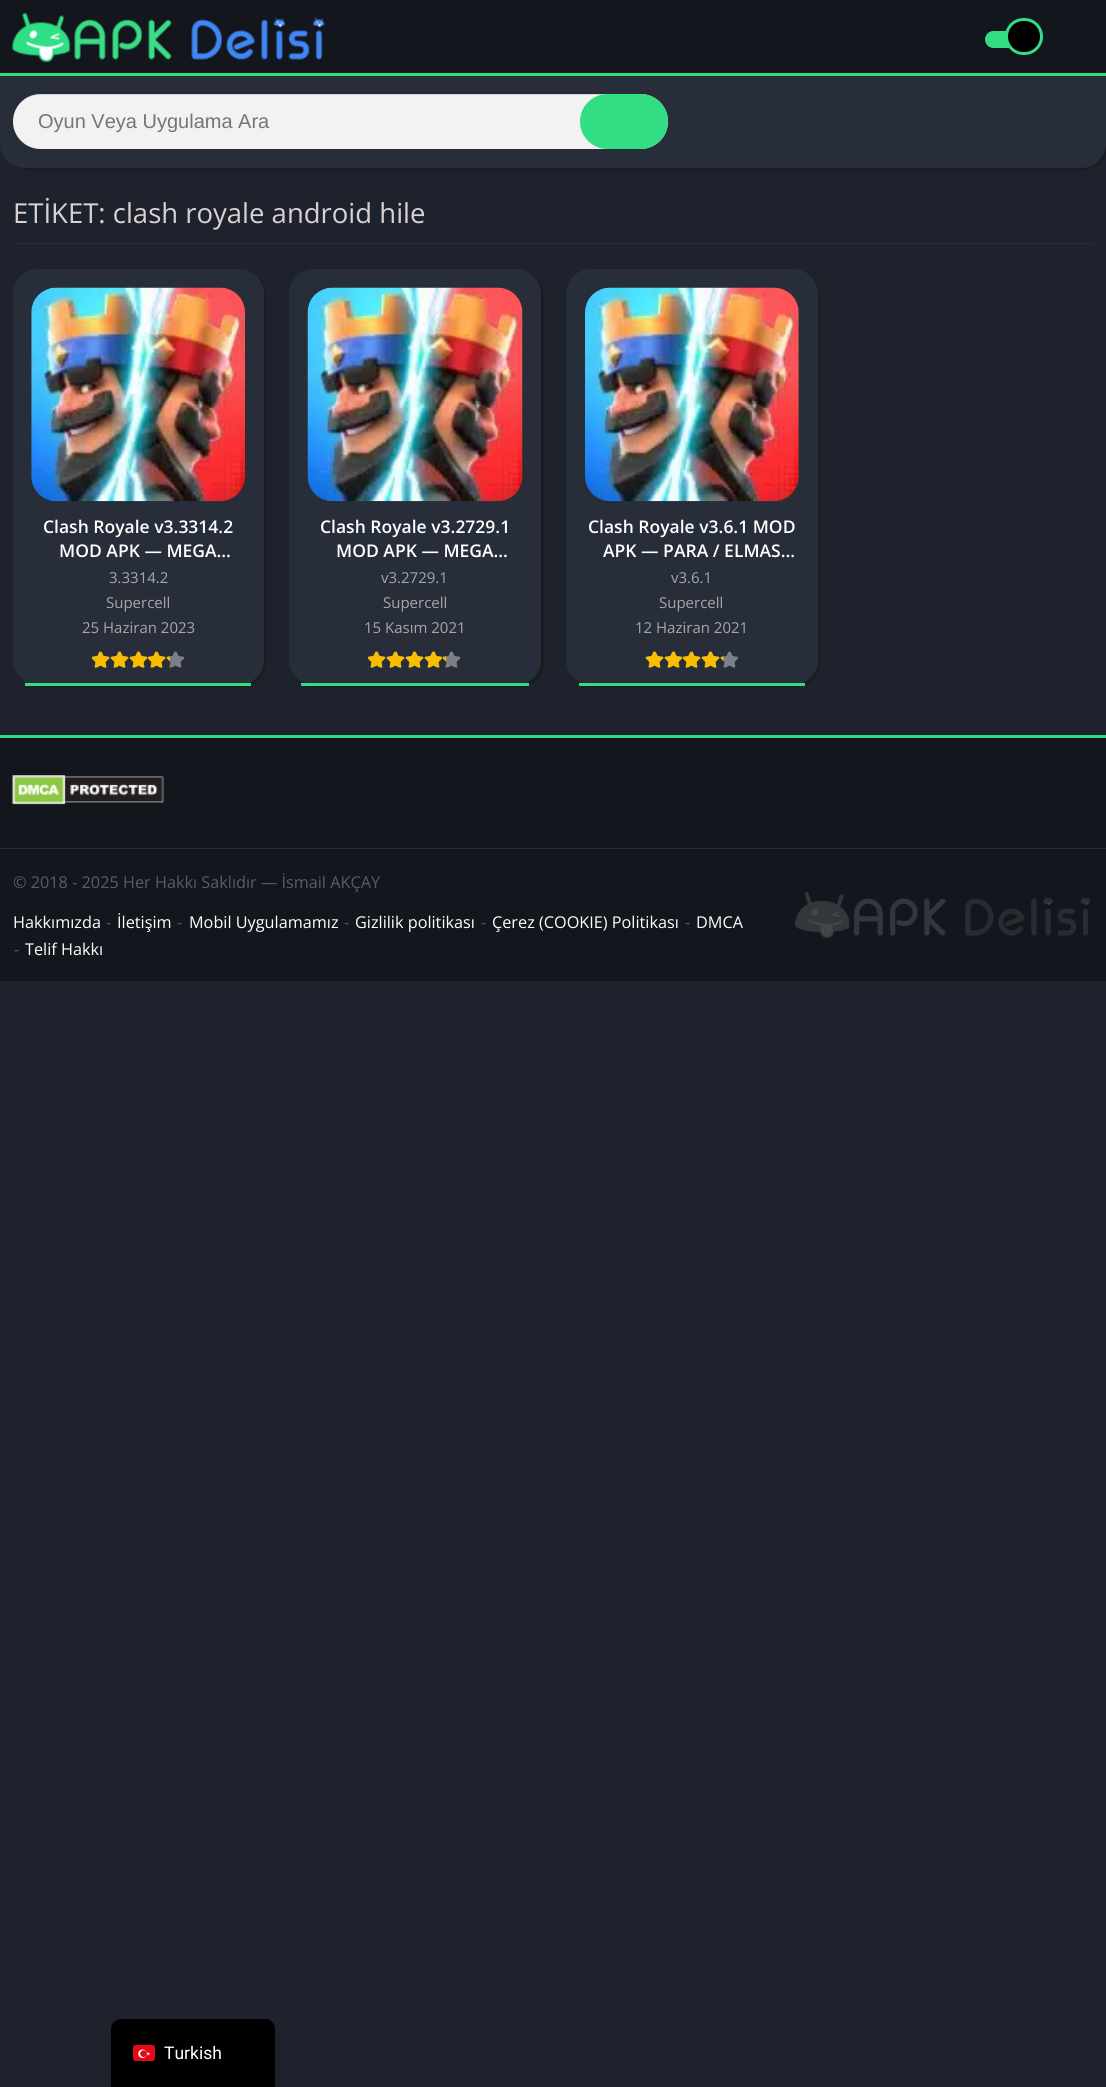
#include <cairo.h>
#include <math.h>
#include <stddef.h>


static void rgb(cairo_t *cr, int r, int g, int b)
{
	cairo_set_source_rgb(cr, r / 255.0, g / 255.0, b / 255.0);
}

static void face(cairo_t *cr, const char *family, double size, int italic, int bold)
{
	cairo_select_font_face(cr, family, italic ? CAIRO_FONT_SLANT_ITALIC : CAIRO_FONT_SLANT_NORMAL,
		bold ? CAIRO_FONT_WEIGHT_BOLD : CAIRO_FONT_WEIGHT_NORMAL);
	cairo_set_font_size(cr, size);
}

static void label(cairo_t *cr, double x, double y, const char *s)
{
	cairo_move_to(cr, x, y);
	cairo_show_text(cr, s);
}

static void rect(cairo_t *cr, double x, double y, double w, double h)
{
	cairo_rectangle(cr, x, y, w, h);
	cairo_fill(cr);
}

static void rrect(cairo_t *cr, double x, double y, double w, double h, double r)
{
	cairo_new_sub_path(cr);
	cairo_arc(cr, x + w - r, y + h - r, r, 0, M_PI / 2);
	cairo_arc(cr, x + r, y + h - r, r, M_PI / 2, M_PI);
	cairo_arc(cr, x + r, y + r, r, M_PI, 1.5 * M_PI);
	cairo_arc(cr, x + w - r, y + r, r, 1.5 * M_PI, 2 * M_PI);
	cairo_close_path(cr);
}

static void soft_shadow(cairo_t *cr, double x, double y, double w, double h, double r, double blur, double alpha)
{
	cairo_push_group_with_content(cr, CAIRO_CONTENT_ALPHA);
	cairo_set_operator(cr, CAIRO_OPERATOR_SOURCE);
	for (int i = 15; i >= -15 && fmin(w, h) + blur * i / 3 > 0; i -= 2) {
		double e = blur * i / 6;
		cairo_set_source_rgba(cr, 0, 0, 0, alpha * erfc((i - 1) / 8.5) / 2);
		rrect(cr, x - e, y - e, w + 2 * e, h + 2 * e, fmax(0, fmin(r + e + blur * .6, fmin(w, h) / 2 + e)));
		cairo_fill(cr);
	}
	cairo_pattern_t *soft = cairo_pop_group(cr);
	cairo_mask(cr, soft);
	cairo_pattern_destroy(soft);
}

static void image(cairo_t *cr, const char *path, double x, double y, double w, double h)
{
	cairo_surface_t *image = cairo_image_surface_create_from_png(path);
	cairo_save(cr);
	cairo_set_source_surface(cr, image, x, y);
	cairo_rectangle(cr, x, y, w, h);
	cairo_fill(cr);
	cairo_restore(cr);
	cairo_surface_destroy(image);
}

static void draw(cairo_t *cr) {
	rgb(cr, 29, 34, 45);
	cairo_paint(cr);
	rgb(cr, 26, 28, 31);
	soft_shadow(cr, 3, 3, 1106, 167, 25, 1, 1);
	rgb(cr, 40, 45, 58);
	cairo_new_path(cr);
	cairo_move_to(cr, 0, 0);
	cairo_line_to(cr, 1106, 0);
	cairo_line_to(cr, 1106, 143);
	cairo_curve_to(cr, 1106, 157, 1095, 168, 1081, 168);
	cairo_line_to(cr, 25, 168);
	cairo_curve_to(cr, 11, 168, 0, 157, 0, 143);
	cairo_close_path(cr);
	cairo_fill(cr);
	rgb(cr, 19, 22, 29);
	rect(cr, 0, 0, 1106, 73);
	rgb(cr, 50, 222, 132);
	rect(cr, 0, 73, 1106, 3);
	image(cr, "image0.png", 12, 12, 313, 51);
	rrect(cr, 985, 31, 56, 17, 8.5);
	cairo_fill(cr);
	rgb(cr, 0, 0, 0);
	rrect(cr, 1006.5, 19.5, 35, 34, 17);
	cairo_fill_preserve(cr);
	rgb(cr, 50, 222, 132);
	cairo_set_line_width(cr, 3);
	cairo_stroke(cr);
	rgb(cr, 242, 242, 242);
	rrect(cr, 13, 94, 655, 55, 27.5);
	cairo_fill(cr);
	cairo_set_source_rgba(cr, 0, 0, 0, 0.12);
	cairo_new_path(cr);
	cairo_move_to(cr, 40, 95);
	cairo_line_to(cr, 640, 95);
	cairo_curve_to(cr, 655, 95, 668, 107, 668, 122);
	cairo_curve_to(cr, 668, 106, 656, 94, 640, 94);
	cairo_line_to(cr, 40, 94);
	cairo_curve_to(cr, 32, 94, 25, 98, 19, 104);
	cairo_curve_to(cr, 25, 98, 32, 95, 40, 95);
	cairo_close_path(cr);
	cairo_fill(cr);
	face(cr, "Liberation Sans", 20, 0, 0);
	rgb(cr, 117, 117, 117);
	label(cr, 38, 128, "Oyun Veya Uygulama Ara");
	rgb(cr, 50, 222, 132);
	rrect(cr, 580, 94, 88, 55, 27.5);
	cairo_fill(cr);
	rgb(cr, 40, 45, 58);
	rect(cr, 13, 243, 1081, 1);
	face(cr, "Open Sans", 27.5, 0, 0);
	rgb(cr, 216, 210, 210);
	label(cr, 13, 223, "ETİKET: clash royale android hile");
	rgb(cr, 26, 28, 31);
	soft_shadow(cr, 15, 271, 251, 417, 25, 1, 1);
	rgb(cr, 40, 45, 58);
	rrect(cr, 13, 269, 251, 416, 25);
	cairo_fill(cr);
	rgb(cr, 50, 222, 132);
	rect(cr, 25, 683, 226, 3);
	image(cr, "image1.png", 31, 287, 214, 215);
	face(cr, "Open Sans SemiBold", 17.5, 0, 0);
	rgb(cr, 255, 255, 255);
	label(cr, 43, 533, "Clash Royale v3.3314.2");
	label(cr, 59, 557, "MOD APK — MEGA…");
	face(cr, "Open Sans", 15, 0, 0);
	rgb(cr, 167, 167, 167);
	label(cr, 109, 583, "3.3314.2");
	label(cr, 106, 608, "Supercell");
	label(cr, 82, 633, "25 Haziran 2023");
	image(cr, "image2.png", 91, 651, 94, 17);
	image(cr, "image3.png", 91, 651, 79, 17);
	rgb(cr, 26, 28, 31);
	soft_shadow(cr, 291, 271, 253, 417, 25, 1, 1);
	rgb(cr, 40, 45, 58);
	rrect(cr, 289, 269, 252, 416, 25);
	cairo_fill(cr);
	rgb(cr, 50, 222, 132);
	rect(cr, 301, 683, 228, 3);
	image(cr, "image4.png", 307, 287, 216, 215);
	face(cr, "Open Sans SemiBold", 17.5, 0, 0);
	rgb(cr, 255, 255, 255);
	label(cr, 320, 533, "Clash Royale v3.2729.1");
	label(cr, 336, 557, "MOD APK — MEGA…");
	face(cr, "Open Sans", 15, 0, 0);
	rgb(cr, 167, 167, 167);
	label(cr, 381, 583, "v3.2729.1");
	label(cr, 383, 608, "Supercell");
	label(cr, 364, 633, "15 Kasım 2021");
	image(cr, "image5.png", 368, 651, 93, 17);
	image(cr, "image6.png", 368, 651, 79, 17);
	rgb(cr, 26, 28, 31);
	soft_shadow(cr, 569, 271, 251, 417, 25, 1, 1);
	rgb(cr, 40, 45, 58);
	rrect(cr, 566, 269, 252, 416, 25);
	cairo_fill(cr);
	rgb(cr, 50, 222, 132);
	rect(cr, 579, 683, 226, 3);
	image(cr, "image7.png", 585, 287, 214, 215);
	face(cr, "Open Sans SemiBold", 17.5, 0, 0);
	rgb(cr, 255, 255, 255);
	label(cr, 588, 533, "Clash Royale v3.6.1 MOD");
	label(cr, 603, 557, "APK — PARA / ELMAS…");
	face(cr, "Open Sans", 15, 0, 0);
	rgb(cr, 167, 167, 167);
	label(cr, 671, 583, "v3.6.1");
	label(cr, 659, 608, "Supercell");
	label(cr, 635, 633, "12 Haziran 2021");
	image(cr, "image8.png", 645, 651, 94, 17);
	image(cr, "image9.png", 645, 651, 79, 17);
	rgb(cr, 19, 22, 29);
	rect(cr, 0, 738, 1106, 243);
	rgb(cr, 50, 222, 132);
	rect(cr, 0, 735, 1106, 3);
	rgb(cr, 43, 45, 52);
	rect(cr, 0, 848, 1106, 1);
	image(cr, "image10.png", 12, 775, 152, 30);
	face(cr, "Open Sans", 16.25, 0, 0);
	rgb(cr, 90, 92, 97);
	label(cr, 13, 888, "© 2018 - 2025 Her Hakkı Saklıdır — İsmail AKÇAY");
	rgb(cr, 255, 255, 255);
	label(cr, 13, 928, "Hakkımızda");
	rgb(cr, 90, 92, 97);
	label(cr, 106, 928, "-");
	rgb(cr, 255, 255, 255);
	label(cr, 117, 928, "İletişim");
	rgb(cr, 90, 92, 97);
	label(cr, 177, 928, "-");
	rgb(cr, 255, 255, 255);
	label(cr, 189, 928, "Mobil Uygulamamız");
	rgb(cr, 90, 92, 97);
	label(cr, 344, 928, "-");
	rgb(cr, 255, 255, 255);
	label(cr, 355, 928, "Gizlilik politikası");
	rgb(cr, 90, 92, 97);
	label(cr, 481, 928, "-");
	rgb(cr, 255, 255, 255);
	label(cr, 492, 928, "Çerez (COOKIE) Politikası");
	rgb(cr, 90, 92, 97);
	label(cr, 685, 928, "-");
	rgb(cr, 255, 255, 255);
	label(cr, 696, 928, "DMCA");
	rgb(cr, 90, 92, 97);
	label(cr, 14, 955, "-");
	rgb(cr, 255, 255, 255);
	label(cr, 25, 955, "Telif Hakkı");
	image(cr, "image11.png", 795, 892, 296, 46);
	rgb(cr, 0, 0, 0);
	cairo_new_path(cr);
	cairo_move_to(cr, 121, 2019);
	cairo_line_to(cr, 265, 2019);
	cairo_curve_to(cr, 270.5, 2019, 275, 2023.5, 275, 2029);
	cairo_line_to(cr, 275, 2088);
	cairo_line_to(cr, 111, 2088);
	cairo_line_to(cr, 111, 2029);
	cairo_curve_to(cr, 111, 2023.5, 115.5, 2019, 121, 2019);
	cairo_close_path(cr);
	cairo_fill(cr);
	image(cr, "image12.png", 133, 2045, 22, 16);
	face(cr, "Roboto", 17.5, 0, 0);
	rgb(cr, 255, 255, 255);
	label(cr, 164, 2059, "Turkish");
}

int main(void) {
	cairo_surface_t *surface = cairo_image_surface_create(CAIRO_FORMAT_RGB24, 1106, 2087);
	cairo_t *cr = cairo_create(surface);
	cairo_font_options_t *options = cairo_font_options_create();
	cairo_font_options_set_hint_metrics(options, CAIRO_HINT_METRICS_OFF);
	cairo_font_options_set_hint_style(options, CAIRO_HINT_STYLE_NONE);
	cairo_set_font_options(cr, options);
	cairo_set_miter_limit(cr, 4);
	draw(cr);
	cairo_surface_write_to_png(surface, "render.png");
	cairo_font_options_destroy(options);
	cairo_destroy(cr);
	cairo_surface_destroy(surface);
	return 0;
}
